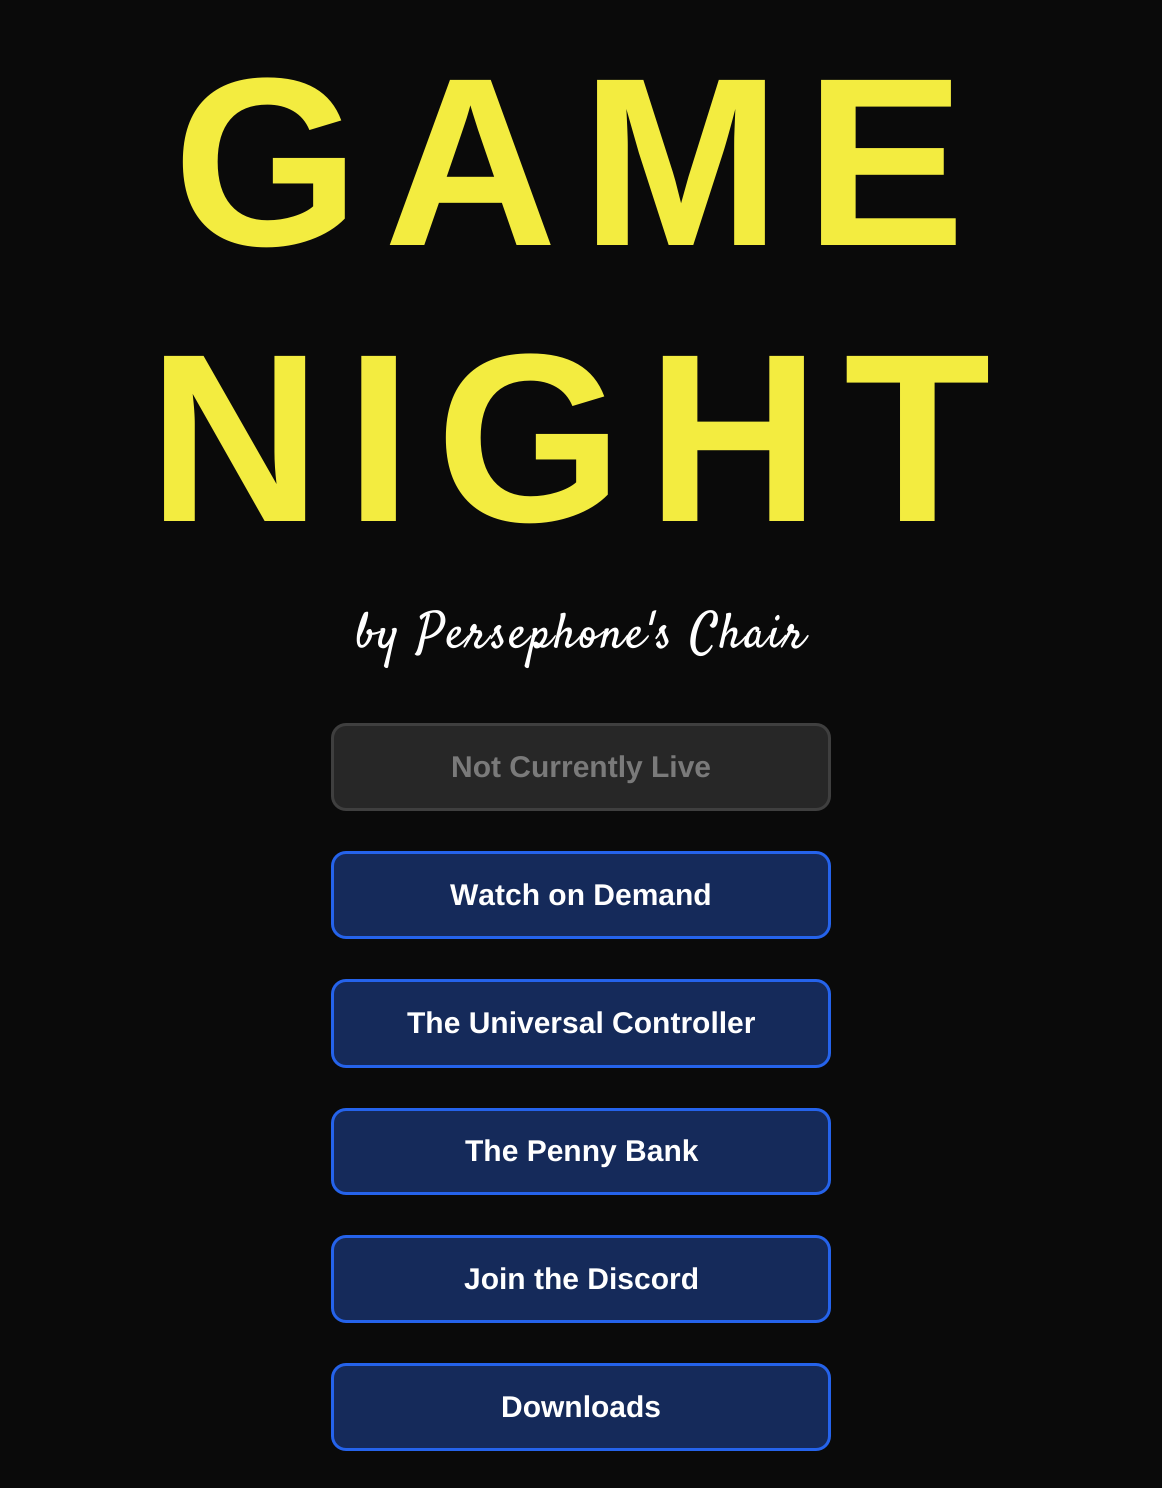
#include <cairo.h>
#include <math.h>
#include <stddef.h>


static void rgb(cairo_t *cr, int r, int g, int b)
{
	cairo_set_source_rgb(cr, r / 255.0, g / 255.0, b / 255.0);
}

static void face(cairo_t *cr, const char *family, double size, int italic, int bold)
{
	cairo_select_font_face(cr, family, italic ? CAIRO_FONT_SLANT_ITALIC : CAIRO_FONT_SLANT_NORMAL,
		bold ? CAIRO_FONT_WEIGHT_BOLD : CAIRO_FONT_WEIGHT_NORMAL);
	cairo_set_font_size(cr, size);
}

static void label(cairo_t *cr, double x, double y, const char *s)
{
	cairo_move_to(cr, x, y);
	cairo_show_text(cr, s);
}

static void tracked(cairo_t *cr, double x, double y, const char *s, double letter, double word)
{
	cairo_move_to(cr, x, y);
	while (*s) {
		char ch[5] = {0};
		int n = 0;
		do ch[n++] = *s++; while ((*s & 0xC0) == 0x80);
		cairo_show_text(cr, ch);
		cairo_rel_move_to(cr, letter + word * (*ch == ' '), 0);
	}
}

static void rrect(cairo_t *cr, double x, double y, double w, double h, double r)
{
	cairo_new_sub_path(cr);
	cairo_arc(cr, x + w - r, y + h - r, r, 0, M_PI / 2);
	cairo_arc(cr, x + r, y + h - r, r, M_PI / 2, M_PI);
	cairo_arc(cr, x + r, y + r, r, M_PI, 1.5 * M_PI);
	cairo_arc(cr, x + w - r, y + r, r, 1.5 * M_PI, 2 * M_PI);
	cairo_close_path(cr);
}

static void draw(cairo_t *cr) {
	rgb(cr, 10, 10, 10);
	cairo_paint(cr);
	face(cr, "Liberation Sans", 240, 0, 1);
	rgb(cr, 243, 236, 64);
	tracked(cr, 173, 245, "GAME", 24, 0);
	tracked(cr, 148, 521, "NIGHT", 24, 0);
	face(cr, "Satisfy", 50, 0, 0);
	rgb(cr, 255, 255, 255);
	tracked(cr, 356, 647, "by Persephone's Chair", 2, 0);
	rgb(cr, 39, 39, 39);
	rrect(cr, 332.5, 724.5, 497, 85, 13.5);
	cairo_fill_preserve(cr);
	rgb(cr, 63, 63, 63);
	cairo_set_line_width(cr, 3);
	cairo_stroke(cr);
	face(cr, "Liberation Sans", 30, 0, 1);
	rgb(cr, 122, 122, 122);
	label(cr, 451, 777, "Not Currently Live");
	rgb(cr, 21, 42, 90);
	rrect(cr, 332.5, 852.5, 497, 85, 13.5);
	cairo_fill_preserve(cr);
	rgb(cr, 37, 99, 235);
	cairo_stroke(cr);
	rgb(cr, 255, 255, 255);
	label(cr, 450, 905, "Watch on Demand");
	rgb(cr, 21, 42, 90);
	rrect(cr, 332.5, 980.5, 497, 86, 13.5);
	cairo_fill_preserve(cr);
	rgb(cr, 37, 99, 235);
	cairo_stroke(cr);
	rgb(cr, 255, 255, 255);
	label(cr, 407, 1033, "The Universal Controller");
	rgb(cr, 21, 42, 90);
	rrect(cr, 332.5, 1109.5, 497, 84, 13.5);
	cairo_fill_preserve(cr);
	rgb(cr, 37, 99, 235);
	cairo_stroke(cr);
	rgb(cr, 255, 255, 255);
	label(cr, 465, 1161, "The Penny Bank");
	rgb(cr, 21, 42, 90);
	rrect(cr, 332.5, 1236.5, 497, 85, 13.5);
	cairo_fill_preserve(cr);
	rgb(cr, 37, 99, 235);
	cairo_stroke(cr);
	rgb(cr, 255, 255, 255);
	label(cr, 464, 1289, "Join the Discord");
	rgb(cr, 21, 42, 90);
	rrect(cr, 332.5, 1364.5, 497, 85, 13.5);
	cairo_fill_preserve(cr);
	rgb(cr, 37, 99, 235);
	cairo_stroke(cr);
	rgb(cr, 255, 255, 255);
	label(cr, 501, 1417, "Downloads");
}

int main(void) {
	cairo_surface_t *surface = cairo_image_surface_create(CAIRO_FORMAT_RGB24, 1162, 1488);
	cairo_t *cr = cairo_create(surface);
	cairo_font_options_t *options = cairo_font_options_create();
	cairo_font_options_set_hint_metrics(options, CAIRO_HINT_METRICS_OFF);
	cairo_font_options_set_hint_style(options, CAIRO_HINT_STYLE_NONE);
	cairo_set_font_options(cr, options);
	cairo_set_miter_limit(cr, 4);
	draw(cr);
	cairo_surface_write_to_png(surface, "render.png");
	cairo_font_options_destroy(options);
	cairo_destroy(cr);
	cairo_surface_destroy(surface);
	return 0;
}
